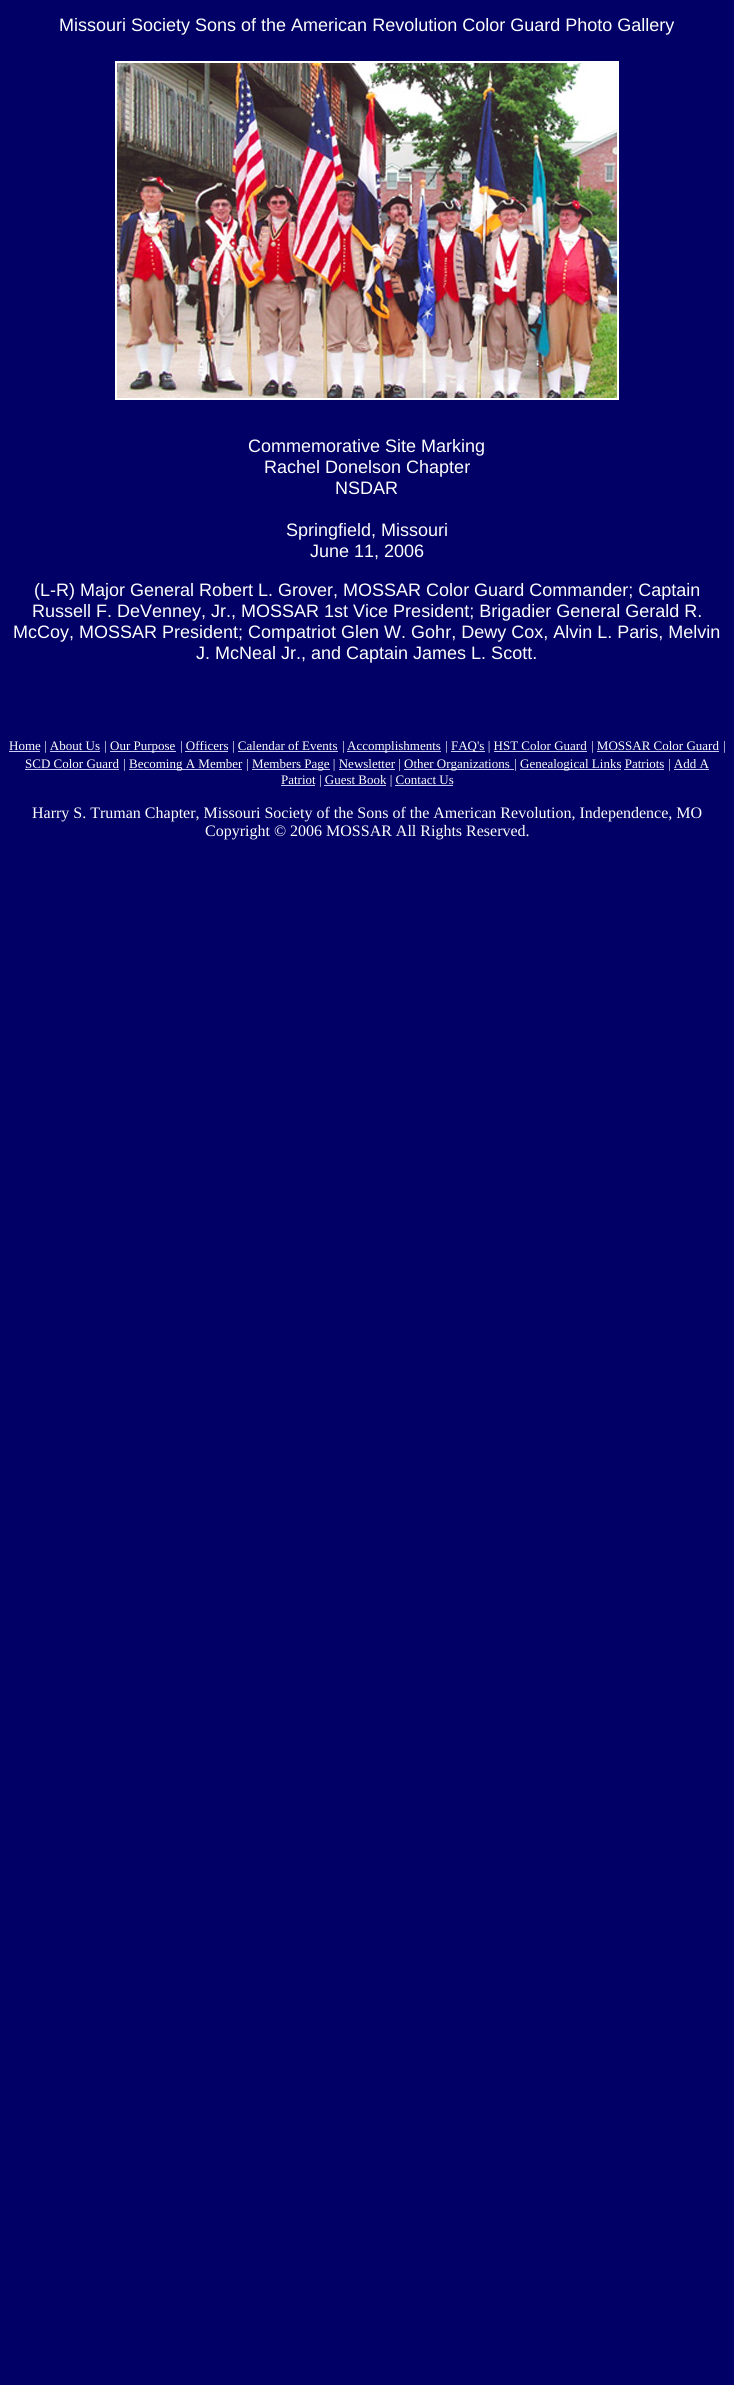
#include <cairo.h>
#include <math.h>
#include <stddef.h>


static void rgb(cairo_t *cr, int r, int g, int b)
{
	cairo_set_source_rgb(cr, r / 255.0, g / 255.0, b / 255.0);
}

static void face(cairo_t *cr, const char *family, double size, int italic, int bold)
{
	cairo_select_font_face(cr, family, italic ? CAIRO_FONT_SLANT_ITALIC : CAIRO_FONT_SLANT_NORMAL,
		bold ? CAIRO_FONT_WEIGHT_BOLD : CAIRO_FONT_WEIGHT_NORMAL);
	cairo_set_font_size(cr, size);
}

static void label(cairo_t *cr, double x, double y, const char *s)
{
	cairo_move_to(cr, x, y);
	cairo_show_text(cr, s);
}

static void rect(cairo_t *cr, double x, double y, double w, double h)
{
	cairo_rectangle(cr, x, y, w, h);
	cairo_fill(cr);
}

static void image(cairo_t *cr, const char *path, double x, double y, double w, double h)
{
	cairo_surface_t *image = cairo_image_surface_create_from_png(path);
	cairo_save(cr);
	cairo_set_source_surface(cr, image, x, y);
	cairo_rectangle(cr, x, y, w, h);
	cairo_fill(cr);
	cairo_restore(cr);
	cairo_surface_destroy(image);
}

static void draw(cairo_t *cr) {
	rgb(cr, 0, 0, 102);
	cairo_paint(cr);
	face(cr, "Liberation Sans", 18, 0, 0);
	rgb(cr, 255, 255, 255);
	label(cr, 59, 31, "Missouri Society Sons of the American Revolution Color Guard Photo Gallery");
	cairo_rectangle(cr, 116, 62, 502, 337);
	cairo_stroke(cr);
	image(cr, "image0.png", 117, 63, 500, 335);
	label(cr, 248, 452, "Commemorative Site Marking");
	label(cr, 264, 473, "Rachel Donelson Chapter");
	label(cr, 335, 494, "NSDAR");
	label(cr, 286, 536, "Springfield, Missouri");
	label(cr, 310, 557, "June 11, 2006");
	label(cr, 34, 596, "(L-R) Major General Robert L. Grover, MOSSAR Color Guard Commander; Captain");
	label(cr, 32, 617, "Russell F. DeVenney, Jr., MOSSAR 1st Vice President; Brigadier General Gerald R.");
	label(cr, 13, 638, "McCoy, MOSSAR President; Compatriot Glen W. Gohr, Dewy Cox, Alvin L. Paris, Melvin");
	label(cr, 196, 659, "J. McNeal Jr., and Captain James L. Scott.");
	face(cr, "Liberation Serif", 13, 0, 0);
	label(cr, 9, 750, "Home");
	rgb(cr, 204, 204, 255);
	rect(cr, 9, 751, 31, 1);
	rgb(cr, 255, 255, 255);
	label(cr, 44, 750, "| About Us");
	rgb(cr, 204, 204, 255);
	rect(cr, 50, 751, 50, 1);
	rgb(cr, 255, 255, 255);
	label(cr, 104, 750, "|");
	rgb(cr, 204, 204, 255);
	rect(cr, 110, 751, 66, 1);
	rgb(cr, 255, 255, 255);
	label(cr, 110, 750, "Our Purpose");
	label(cr, 180, 750, "| Officers");
	rgb(cr, 204, 204, 255);
	rect(cr, 185, 751, 43, 1);
	rgb(cr, 255, 255, 255);
	label(cr, 232, 750, "| Calendar of Events");
	rgb(cr, 204, 204, 255);
	rect(cr, 238, 751, 100, 1);
	rgb(cr, 255, 255, 255);
	label(cr, 342, 750, "|");
	rgb(cr, 204, 204, 255);
	rect(cr, 347, 751, 94, 1);
	rgb(cr, 255, 255, 255);
	label(cr, 347, 750, "Accomplishments");
	label(cr, 445, 750, "|");
	rgb(cr, 204, 204, 255);
	rect(cr, 451, 751, 34, 1);
	rgb(cr, 255, 255, 255);
	label(cr, 451, 750, "FAQ's | HST Color Guard");
	rgb(cr, 204, 204, 255);
	rect(cr, 494, 751, 93, 1);
	rgb(cr, 255, 255, 255);
	label(cr, 591, 750, "| MOSSAR Color Guard");
	rgb(cr, 204, 204, 255);
	rect(cr, 597, 751, 122, 1);
	rgb(cr, 255, 255, 255);
	label(cr, 723, 750, "|");
	label(cr, 25, 768, "SCD Color Guard");
	rgb(cr, 204, 204, 255);
	rect(cr, 25, 769, 94, 1);
	rgb(cr, 255, 255, 255);
	label(cr, 123, 768, "|");
	rgb(cr, 204, 204, 255);
	rect(cr, 129, 769, 113, 1);
	rgb(cr, 255, 255, 255);
	label(cr, 129, 768, "Becoming A Member");
	label(cr, 246, 768, "|");
	rgb(cr, 204, 204, 255);
	rect(cr, 252, 769, 78, 1);
	rgb(cr, 255, 255, 255);
	label(cr, 252, 768, "Members Page | Newsletter |");
	rgb(cr, 204, 204, 255);
	rect(cr, 339, 769, 56, 1);
	rect(cr, 404, 769, 110, 1);
	rgb(cr, 255, 255, 255);
	label(cr, 404, 768, "Other Organizations");
	label(cr, 514, 768, "|");
	rgb(cr, 204, 204, 255);
	rect(cr, 520, 769, 101, 1);
	rgb(cr, 255, 255, 255);
	label(cr, 520, 768, "Genealogical Links Patriots");
	rgb(cr, 204, 204, 255);
	rect(cr, 624, 769, 40, 1);
	rgb(cr, 255, 255, 255);
	label(cr, 668, 768, "| Add A");
	rgb(cr, 204, 204, 255);
	rect(cr, 674, 769, 35, 1);
	rect(cr, 281, 785, 34, 1);
	rgb(cr, 255, 255, 255);
	label(cr, 281, 784, "Patriot | Guest Book | Contact Us");
	rgb(cr, 204, 204, 255);
	rect(cr, 324, 785, 62, 1);
	rect(cr, 395, 785, 58, 1);
	face(cr, "Liberation Serif", 16, 0, 0);
	rgb(cr, 255, 255, 255);
	label(cr, 32, 818, "Harry S. Truman Chapter, Missouri Society of the Sons of the American Revolution, Independence, MO");
	label(cr, 205, 836, "Copyright © 2006 MOSSAR All Rights Reserved.");
}

int main(void) {
	cairo_surface_t *surface = cairo_image_surface_create(CAIRO_FORMAT_RGB24, 734, 2385);
	cairo_t *cr = cairo_create(surface);
	cairo_font_options_t *options = cairo_font_options_create();
	cairo_font_options_set_hint_metrics(options, CAIRO_HINT_METRICS_OFF);
	cairo_font_options_set_hint_style(options, CAIRO_HINT_STYLE_NONE);
	cairo_set_font_options(cr, options);
	cairo_set_miter_limit(cr, 4);
	draw(cr);
	cairo_surface_write_to_png(surface, "render.png");
	cairo_font_options_destroy(options);
	cairo_destroy(cr);
	cairo_surface_destroy(surface);
	return 0;
}
